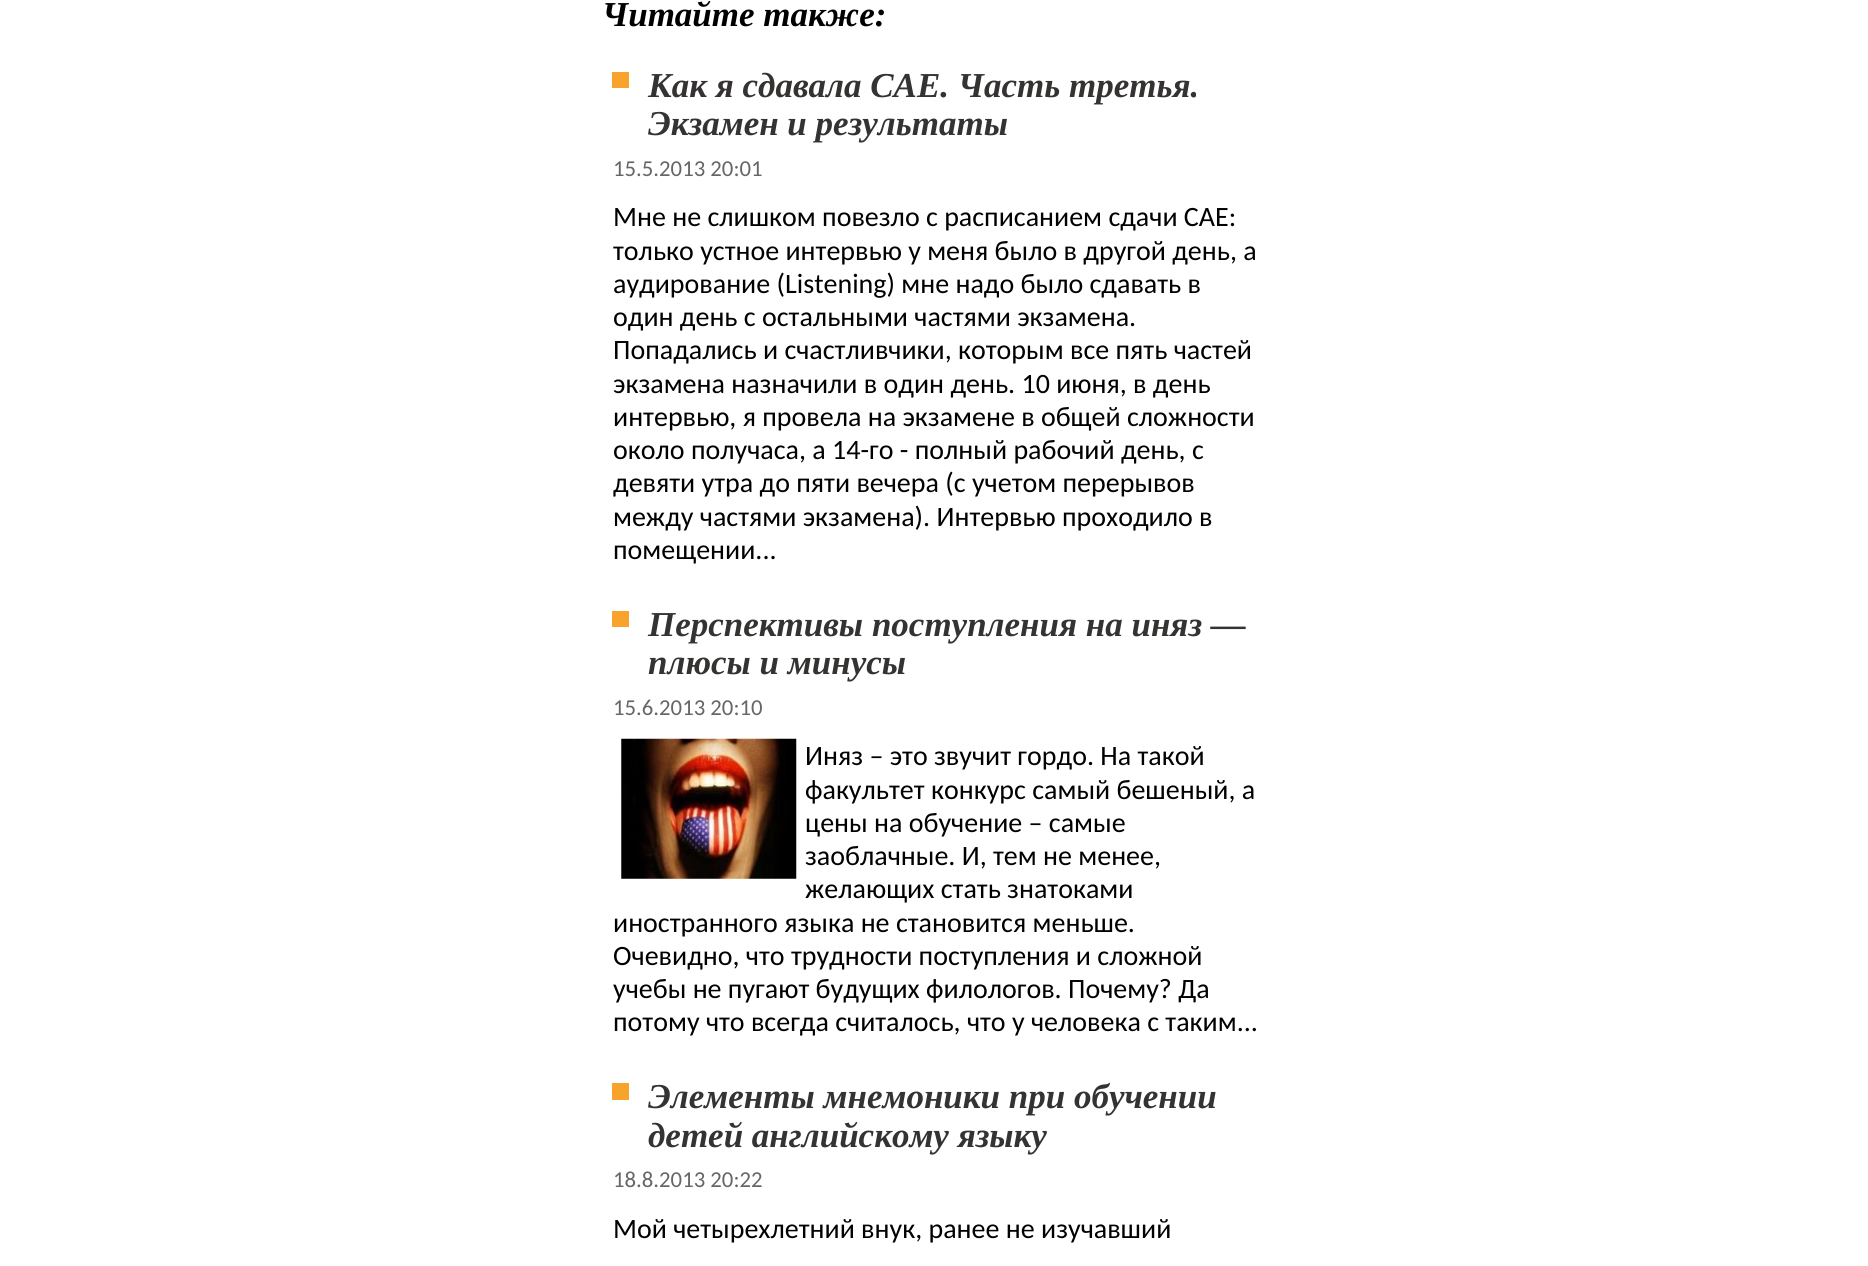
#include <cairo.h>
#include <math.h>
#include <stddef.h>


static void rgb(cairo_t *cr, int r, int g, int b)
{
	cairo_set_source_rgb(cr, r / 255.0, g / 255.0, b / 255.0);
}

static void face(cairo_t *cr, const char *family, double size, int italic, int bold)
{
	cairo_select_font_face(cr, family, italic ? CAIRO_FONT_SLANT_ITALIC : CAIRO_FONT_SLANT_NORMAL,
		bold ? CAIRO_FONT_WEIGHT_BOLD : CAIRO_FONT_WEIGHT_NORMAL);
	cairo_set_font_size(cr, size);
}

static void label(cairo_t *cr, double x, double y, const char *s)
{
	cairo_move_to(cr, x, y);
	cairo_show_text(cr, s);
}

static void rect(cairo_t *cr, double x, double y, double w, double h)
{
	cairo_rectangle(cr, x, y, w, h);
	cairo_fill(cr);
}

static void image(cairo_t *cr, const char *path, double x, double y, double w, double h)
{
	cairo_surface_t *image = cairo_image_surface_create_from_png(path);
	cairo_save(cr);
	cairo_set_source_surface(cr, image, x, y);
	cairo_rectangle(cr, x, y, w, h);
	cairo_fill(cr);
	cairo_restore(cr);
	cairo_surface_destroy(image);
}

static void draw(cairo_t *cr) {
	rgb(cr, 255, 255, 255);
	cairo_paint(cr);
	face(cr, "Liberation Serif", 35, 1, 1);
	rgb(cr, 0, 0, 0);
	label(cr, 602, 26, "Читайте также:");
	rgb(cr, 248, 163, 44);
	rect(cr, 612, 72, 17, 16);
	rgb(cr, 53, 51, 50);
	label(cr, 648, 97, "Как я сдавала CAE. Часть третья.");
	label(cr, 648, 135, "Экзамен и результаты");
	face(cr, "Carlito", 22.75, 0, 0);
	rgb(cr, 102, 102, 102);
	label(cr, 613, 176, "15.5.2013 20:01");
	face(cr, "Carlito", 28, 0, 0);
	rgb(cr, 0, 0, 0);
	label(cr, 613, 226, "Мне не слишком повезло с расписанием сдачи CAE:");
	label(cr, 613, 260, "только устное интервью у меня было в другой день, а");
	label(cr, 613, 293, "аудирование (Listening) мне надо было сдавать в");
	label(cr, 613, 326, "один день с остальными частями экзамена.");
	label(cr, 613, 359, "Попадались и счастливчики, которым все пять частей");
	label(cr, 613, 393, "экзамена назначили в один день. 10 июня, в день");
	label(cr, 613, 426, "интервью, я провела на экзамене в общей сложности");
	label(cr, 613, 459, "около получаса, а 14-го - полный рабочий день, с");
	label(cr, 613, 492, "девяти утра до пяти вечера (с учетом перерывов");
	label(cr, 613, 526, "между частями экзамена). Интервью проходило в");
	label(cr, 613, 559, "помещении...");
	rgb(cr, 248, 163, 44);
	rect(cr, 612, 611, 17, 16);
	face(cr, "Liberation Serif", 35, 1, 1);
	rgb(cr, 53, 51, 50);
	label(cr, 648, 636, "Перспективы поступления на иняз —");
	label(cr, 648, 674, "плюсы и минусы");
	face(cr, "Carlito", 22.75, 0, 0);
	rgb(cr, 102, 102, 102);
	label(cr, 613, 715, "15.6.2013 20:10");
	image(cr, "image0.png", 621, 738, 176, 141);
	face(cr, "Carlito", 28, 0, 0);
	rgb(cr, 0, 0, 0);
	label(cr, 805, 765, "Иняз – это звучит гордо. На такой");
	label(cr, 805, 799, "факультет конкурс самый бешеный, а");
	label(cr, 805, 832, "цены на обучение – самые");
	label(cr, 805, 865, "заоблачные. И, тем не менее,");
	label(cr, 805, 898, "желающих стать знатоками");
	label(cr, 613, 932, "иностранного языка не становится меньше.");
	label(cr, 613, 965, "Очевидно, что трудности поступления и сложной");
	label(cr, 613, 998, "учебы не пугают будущих филологов. Почему? Да");
	label(cr, 613, 1031, "потому что всегда считалось, что у человека с таким...");
	rgb(cr, 248, 163, 44);
	rect(cr, 612, 1083, 17, 17);
	face(cr, "Liberation Serif", 35, 1, 1);
	rgb(cr, 53, 51, 50);
	label(cr, 648, 1108, "Элементы мнемоники при обучении");
	label(cr, 648, 1147, "детей английскому языку");
	face(cr, "Carlito", 22.75, 0, 0);
	rgb(cr, 102, 102, 102);
	label(cr, 613, 1187, "18.8.2013 20:22");
	face(cr, "Carlito", 28, 0, 0);
	rgb(cr, 0, 0, 0);
	label(cr, 613, 1238, "Мой четырехлетний внук, ранее не изучавший");
}

int main(void) {
	cairo_surface_t *surface = cairo_image_surface_create(CAIRO_FORMAT_RGB24, 1868, 1266);
	cairo_t *cr = cairo_create(surface);
	cairo_font_options_t *options = cairo_font_options_create();
	cairo_font_options_set_hint_metrics(options, CAIRO_HINT_METRICS_OFF);
	cairo_font_options_set_hint_style(options, CAIRO_HINT_STYLE_NONE);
	cairo_set_font_options(cr, options);
	cairo_set_miter_limit(cr, 4);
	draw(cr);
	cairo_surface_write_to_png(surface, "render.png");
	cairo_font_options_destroy(options);
	cairo_destroy(cr);
	cairo_surface_destroy(surface);
	return 0;
}
